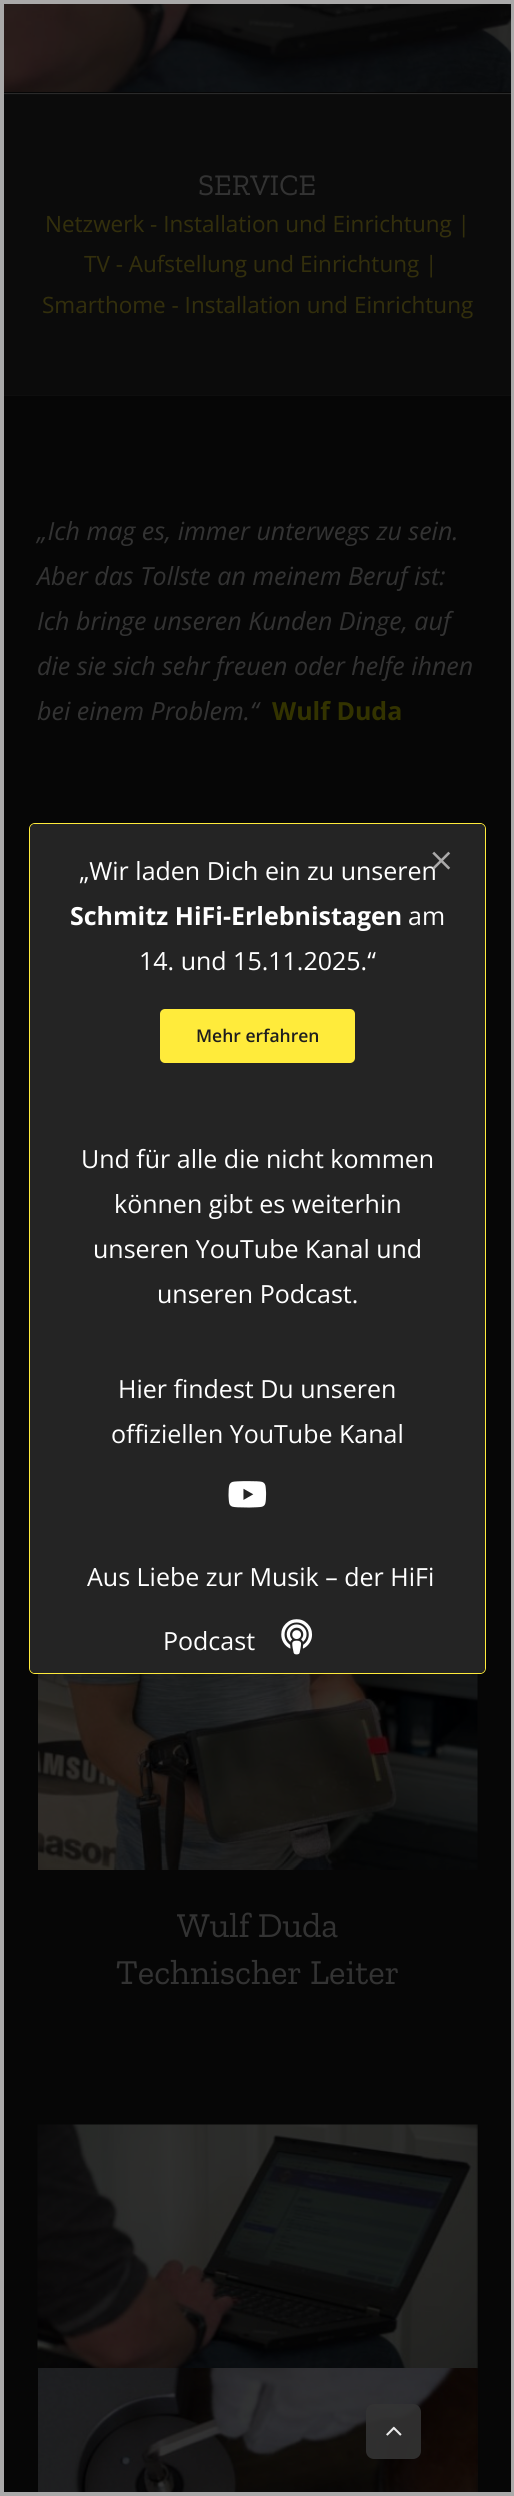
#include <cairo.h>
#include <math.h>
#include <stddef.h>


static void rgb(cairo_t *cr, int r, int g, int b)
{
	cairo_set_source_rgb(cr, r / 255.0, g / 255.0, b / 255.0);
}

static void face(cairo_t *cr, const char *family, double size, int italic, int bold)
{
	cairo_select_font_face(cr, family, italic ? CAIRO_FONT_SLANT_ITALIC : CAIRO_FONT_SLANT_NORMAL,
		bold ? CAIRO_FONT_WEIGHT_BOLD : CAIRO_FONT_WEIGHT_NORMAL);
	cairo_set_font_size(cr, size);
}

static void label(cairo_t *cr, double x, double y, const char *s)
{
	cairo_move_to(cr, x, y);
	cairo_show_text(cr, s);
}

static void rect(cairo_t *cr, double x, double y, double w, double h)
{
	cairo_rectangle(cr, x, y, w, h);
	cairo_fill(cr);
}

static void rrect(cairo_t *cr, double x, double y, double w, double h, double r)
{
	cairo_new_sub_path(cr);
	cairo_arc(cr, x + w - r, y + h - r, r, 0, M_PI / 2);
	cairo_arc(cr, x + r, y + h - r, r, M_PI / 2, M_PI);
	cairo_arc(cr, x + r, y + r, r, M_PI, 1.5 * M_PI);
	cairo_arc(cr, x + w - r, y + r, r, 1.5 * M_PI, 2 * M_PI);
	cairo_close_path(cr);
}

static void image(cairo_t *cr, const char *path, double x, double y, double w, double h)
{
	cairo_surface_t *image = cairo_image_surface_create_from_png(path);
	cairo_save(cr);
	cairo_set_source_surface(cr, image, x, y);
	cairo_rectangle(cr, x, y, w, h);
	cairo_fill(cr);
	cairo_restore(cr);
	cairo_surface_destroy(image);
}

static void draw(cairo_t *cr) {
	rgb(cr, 6, 6, 6);
	cairo_paint(cr);
	rgb(cr, 42, 42, 42);
	rect(cr, 0, 93, 514, 1);
	image(cr, "image0.png", 4, 4, 507, 88);
	rgb(cr, 11, 11, 11);
	rect(cr, 4, 95, 507, 300);
	rgb(cr, 14, 14, 14);
	rect(cr, 0, 94, 514, 1);
	rect(cr, 0, 395, 514, 1);
	face(cr, "Zilla Slab", 30, 0, 0);
	rgb(cr, 51, 51, 51);
	label(cr, 198, 195, "SERVICE");
	face(cr, "Open Sans", 22.5, 0, 0);
	rgb(cr, 51, 47, 12);
	label(cr, 45, 232, "Netzwerk - Installation und Einrichtung |");
	label(cr, 84, 272, "TV - Aufstellung und Einrichtung |");
	label(cr, 42, 313, "Smarthome - Installation und Einrichtung");
	face(cr, "Open Sans", 25, 1, 0);
	rgb(cr, 51, 51, 51);
	label(cr, 37, 540, "„Ich mag es, immer unterwegs zu sein.");
	label(cr, 37, 585, "Aber das Tollste an meinem Beruf ist:");
	label(cr, 37, 630, "Ich bringe unseren Kunden Dinge, auf");
	label(cr, 37, 675, "die sie sich sehr freuen oder helfe ihnen");
	label(cr, 37, 720, "bei einem Problem.“");
	face(cr, "Open Sans", 25, 0, 1);
	rgb(cr, 51, 51, 0);
	label(cr, 272, 720, "Wulf Duda");
	image(cr, "image1.png", 38, 1674, 440, 196);
	face(cr, "Zilla Slab", 35, 0, 0);
	rgb(cr, 51, 51, 51);
	label(cr, 177, 1937, "Wulf Duda");
	label(cr, 116, 1984, "Technischer Leiter");
	image(cr, "image2.png", 37, 2124, 441, 245);
	image(cr, "image3.png", 38, 2368, 440, 124);
	cairo_rectangle(cr, 2, 2, 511, 2492);
	rgb(cr, 170, 169, 169);
	cairo_set_line_width(cr, 4);
	cairo_stroke(cr);
	rrect(cr, 29.5, 823.5, 456, 850, 5.5);
	rgb(cr, 255, 235, 59);
	cairo_set_line_width(cr, 1);
	cairo_stroke(cr);
	rgb(cr, 36, 36, 36);
	rrect(cr, 30, 824, 455, 849, 5);
	cairo_fill(cr);
	face(cr, "Open Sans", 25, 0, 0);
	rgb(cr, 255, 255, 255);
	label(cr, 79, 880, "„Wir laden Dich ein zu unseren");
	image(cr, "image4.png", 432, 851, 19, 19);
	face(cr, "Open Sans", 25, 0, 1);
	label(cr, 70, 925, "Schmitz HiFi-Erlebnistagen");
	face(cr, "Open Sans", 25, 0, 0);
	label(cr, 408, 925, "am");
	label(cr, 139, 970, "14. und 15.11.2025.“");
	rgb(cr, 255, 235, 59);
	rrect(cr, 160, 1009, 195, 54, 5);
	cairo_fill(cr);
	face(cr, "Open Sans SemiBold", 17.5, 0, 0);
	rgb(cr, 30, 30, 30);
	label(cr, 196, 1042, "Mehr erfahren");
	face(cr, "Open Sans", 25, 0, 0);
	rgb(cr, 255, 255, 255);
	label(cr, 81, 1168, "Und für alle die nicht kommen");
	label(cr, 114, 1213, "können gibt es weiterhin");
	label(cr, 93, 1258, "unseren YouTube Kanal und");
	label(cr, 157, 1303, "unseren Podcast.");
	label(cr, 118, 1398, "Hier findest Du unseren");
	label(cr, 111, 1443, "offiziellen YouTube Kanal");
	image(cr, "image5.png", 228, 1481, 39, 27);
	label(cr, 87, 1586, "Aus Liebe zur Musik – der HiFi");
	label(cr, 163, 1650, "Podcast");
	image(cr, "image6.png", 281, 1619, 32, 36);
	cairo_set_source_rgba(cr, 0.2, 0.2, 0.2, 0.9);
	rrect(cr, 366, 2404, 55, 55, 8);
	cairo_fill(cr);
	image(cr, "image7.png", 386, 2426, 16, 10);
}

int main(void) {
	cairo_surface_t *surface = cairo_image_surface_create(CAIRO_FORMAT_RGB24, 514, 2496);
	cairo_t *cr = cairo_create(surface);
	cairo_font_options_t *options = cairo_font_options_create();
	cairo_font_options_set_hint_metrics(options, CAIRO_HINT_METRICS_OFF);
	cairo_font_options_set_hint_style(options, CAIRO_HINT_STYLE_NONE);
	cairo_set_font_options(cr, options);
	cairo_set_miter_limit(cr, 4);
	draw(cr);
	cairo_surface_write_to_png(surface, "render.png");
	cairo_font_options_destroy(options);
	cairo_destroy(cr);
	cairo_surface_destroy(surface);
	return 0;
}
